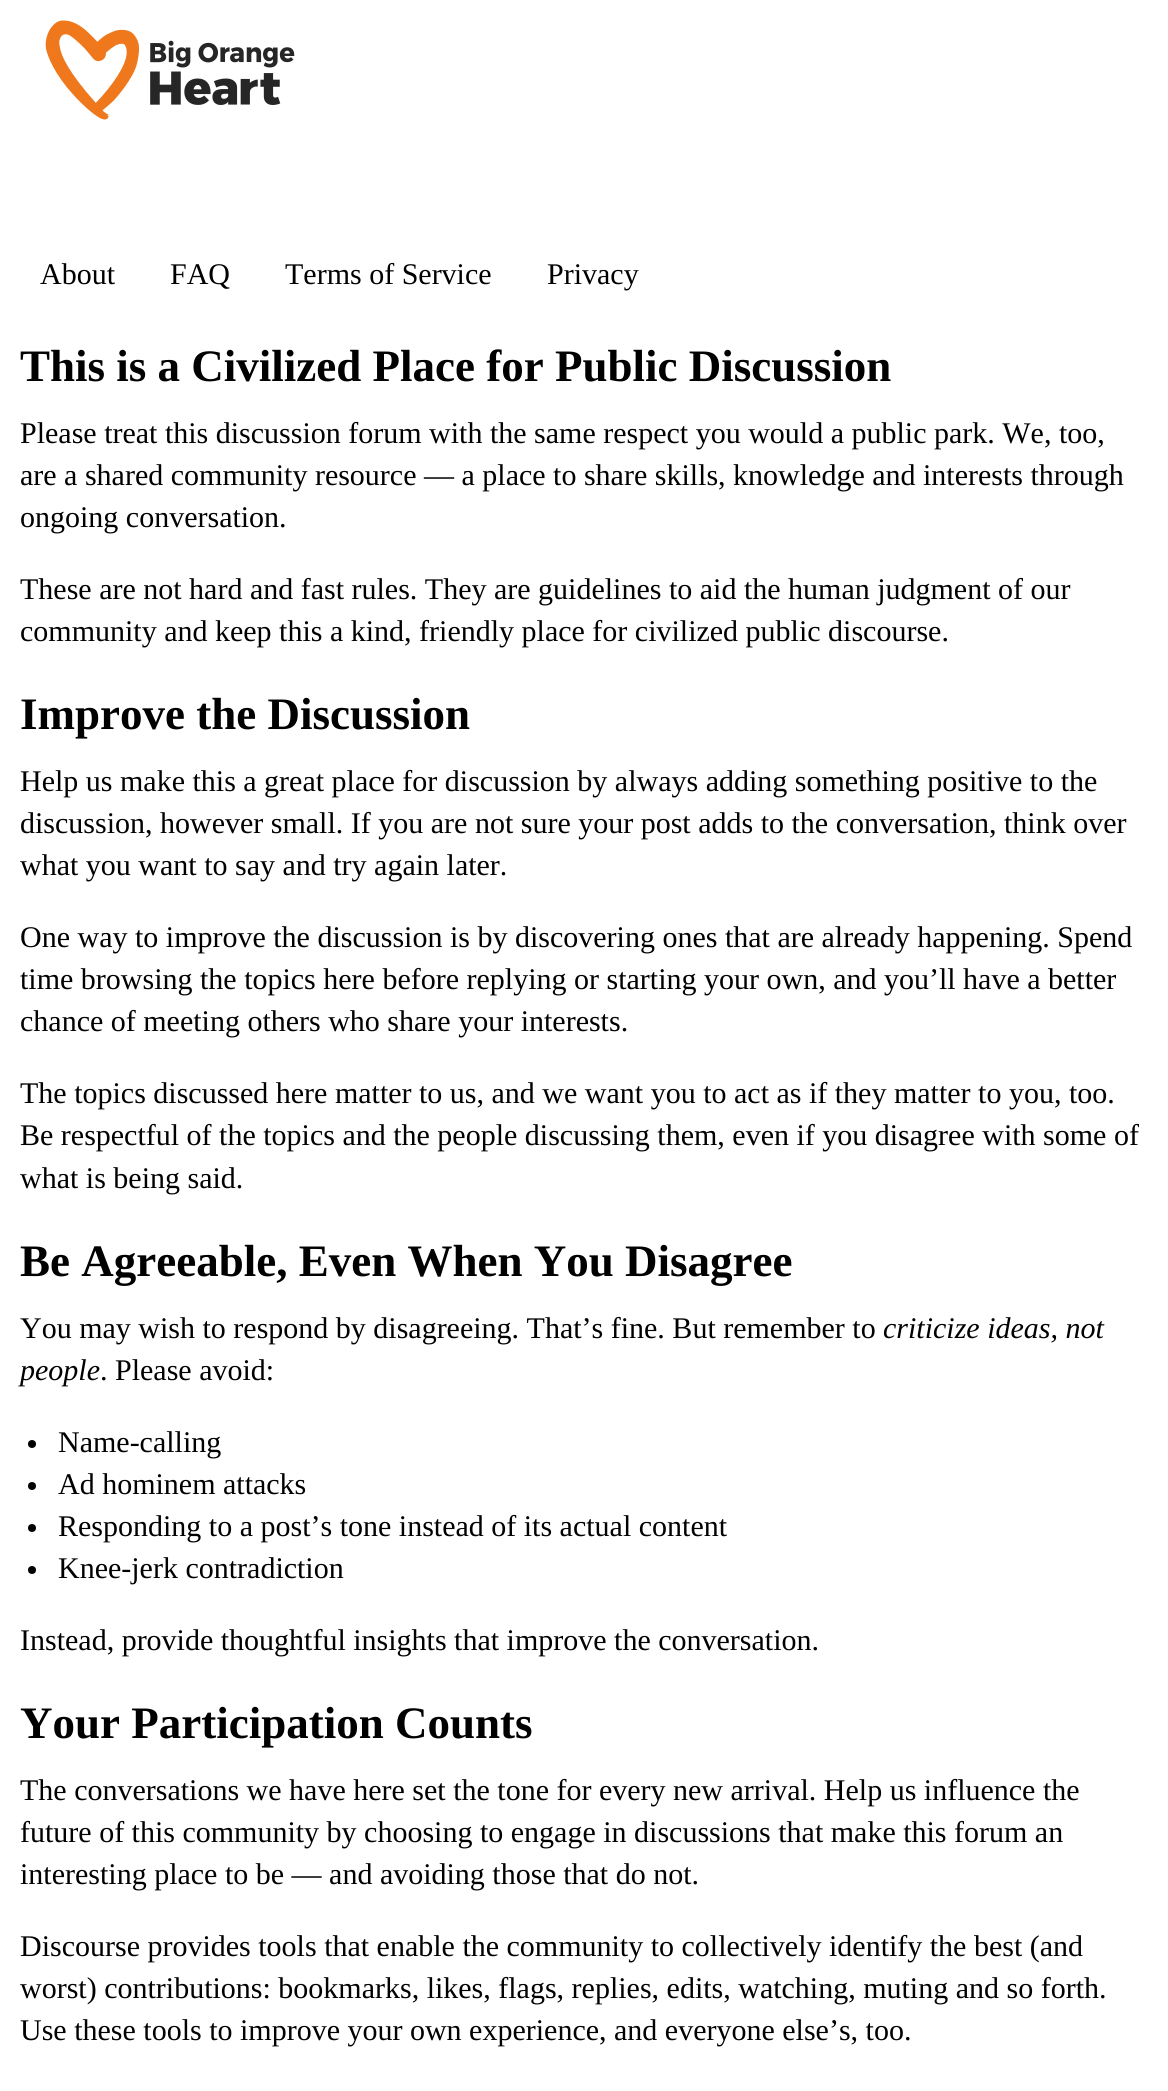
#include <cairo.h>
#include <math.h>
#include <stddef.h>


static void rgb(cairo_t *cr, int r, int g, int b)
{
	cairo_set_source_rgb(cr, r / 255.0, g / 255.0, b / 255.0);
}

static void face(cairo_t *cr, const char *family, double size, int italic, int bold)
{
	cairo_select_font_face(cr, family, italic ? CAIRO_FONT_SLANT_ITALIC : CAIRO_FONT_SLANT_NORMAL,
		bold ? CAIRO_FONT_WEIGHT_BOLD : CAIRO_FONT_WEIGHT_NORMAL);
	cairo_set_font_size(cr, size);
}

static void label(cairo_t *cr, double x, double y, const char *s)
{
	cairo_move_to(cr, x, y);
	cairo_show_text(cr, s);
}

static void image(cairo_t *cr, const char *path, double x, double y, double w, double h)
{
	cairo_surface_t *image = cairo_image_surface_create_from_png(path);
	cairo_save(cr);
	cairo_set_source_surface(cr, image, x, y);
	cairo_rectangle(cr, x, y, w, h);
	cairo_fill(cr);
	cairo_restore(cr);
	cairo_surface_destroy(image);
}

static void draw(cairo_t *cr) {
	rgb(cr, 255, 255, 255);
	cairo_paint(cr);
	image(cr, "image0.png", 45, 20, 250, 100);
	face(cr, "Liberation Serif", 30, 0, 0);
	rgb(cr, 0, 0, 0);
	label(cr, 40, 284, "About");
	label(cr, 170, 284, "FAQ");
	label(cr, 285, 284, "Terms of Service");
	label(cr, 547, 284, "Privacy");
	face(cr, "Liberation Serif", 45, 0, 1);
	label(cr, 20, 381, "This is a Civilized Place for Public Discussion");
	face(cr, "Liberation Serif", 30, 0, 0);
	label(cr, 20, 443, "Please treat this discussion forum with the same respect you would a public park. We, too,");
	label(cr, 20, 485, "are a shared community resource — a place to share skills, knowledge and interests through");
	label(cr, 20, 527, "ongoing conversation.");
	label(cr, 20, 599, "These are not hard and fast rules. They are guidelines to aid the human judgment of our");
	label(cr, 20, 641, "community and keep this a kind, friendly place for civilized public discourse.");
	face(cr, "Liberation Serif", 45, 0, 1);
	label(cr, 20, 729, "Improve the Discussion");
	face(cr, "Liberation Serif", 30, 0, 0);
	label(cr, 20, 791, "Help us make this a great place for discussion by always adding something positive to the");
	label(cr, 20, 833, "discussion, however small. If you are not sure your post adds to the conversation, think over");
	label(cr, 20, 875, "what you want to say and try again later.");
	label(cr, 20, 947, "One way to improve the discussion is by discovering ones that are already happening. Spend");
	label(cr, 20, 989, "time browsing the topics here before replying or starting your own, and you’ll have a better");
	label(cr, 20, 1031, "chance of meeting others who share your interests.");
	label(cr, 20, 1103, "The topics discussed here matter to us, and we want you to act as if they matter to you, too.");
	label(cr, 20, 1145, "Be respectful of the topics and the people discussing them, even if you disagree with some of");
	label(cr, 20, 1188, "what is being said.");
	face(cr, "Liberation Serif", 45, 0, 1);
	label(cr, 20, 1276, "Be Agreeable, Even When You Disagree");
	face(cr, "Liberation Serif", 30, 0, 0);
	label(cr, 20, 1338, "You may wish to respond by disagreeing. That’s fine. But remember to");
	face(cr, "Liberation Serif", 30, 1, 0);
	label(cr, 883, 1338, "criticize ideas, not");
	label(cr, 20, 1380, "people");
	face(cr, "Liberation Serif", 30, 0, 0);
	label(cr, 100, 1380, ". Please avoid:");
	cairo_new_path(cr);
	cairo_arc(cr, 32, 1444, 4, 0, 2 * M_PI);
	cairo_fill(cr);
	label(cr, 58, 1452, "Name-calling");
	cairo_new_path(cr);
	cairo_arc(cr, 32, 1486, 4, 0, 2 * M_PI);
	cairo_fill(cr);
	label(cr, 58, 1494, "Ad hominem attacks");
	cairo_new_path(cr);
	cairo_arc(cr, 32, 1528, 4, 0, 2 * M_PI);
	cairo_fill(cr);
	label(cr, 58, 1536, "Responding to a post’s tone instead of its actual content");
	cairo_new_path(cr);
	cairo_arc(cr, 32, 1570, 4, 0, 2 * M_PI);
	cairo_fill(cr);
	label(cr, 58, 1578, "Knee-jerk contradiction");
	label(cr, 20, 1650, "Instead, provide thoughtful insights that improve the conversation.");
	face(cr, "Liberation Serif", 45, 0, 1);
	label(cr, 20, 1738, "Your Participation Counts");
	face(cr, "Liberation Serif", 30, 0, 0);
	label(cr, 20, 1800, "The conversations we have here set the tone for every new arrival. Help us influence the");
	label(cr, 20, 1842, "future of this community by choosing to engage in discussions that make this forum an");
	label(cr, 20, 1884, "interesting place to be — and avoiding those that do not.");
	label(cr, 20, 1956, "Discourse provides tools that enable the community to collectively identify the best (and");
	label(cr, 20, 1998, "worst) contributions: bookmarks, likes, flags, replies, edits, watching, muting and so forth.");
	label(cr, 20, 2040, "Use these tools to improve your own experience, and everyone else’s, too.");
}

int main(void) {
	cairo_surface_t *surface = cairo_image_surface_create(CAIRO_FORMAT_RGB24, 1168, 2091);
	cairo_t *cr = cairo_create(surface);
	cairo_font_options_t *options = cairo_font_options_create();
	cairo_font_options_set_hint_metrics(options, CAIRO_HINT_METRICS_OFF);
	cairo_font_options_set_hint_style(options, CAIRO_HINT_STYLE_NONE);
	cairo_set_font_options(cr, options);
	cairo_set_miter_limit(cr, 4);
	draw(cr);
	cairo_surface_write_to_png(surface, "render.png");
	cairo_font_options_destroy(options);
	cairo_destroy(cr);
	cairo_surface_destroy(surface);
	return 0;
}
